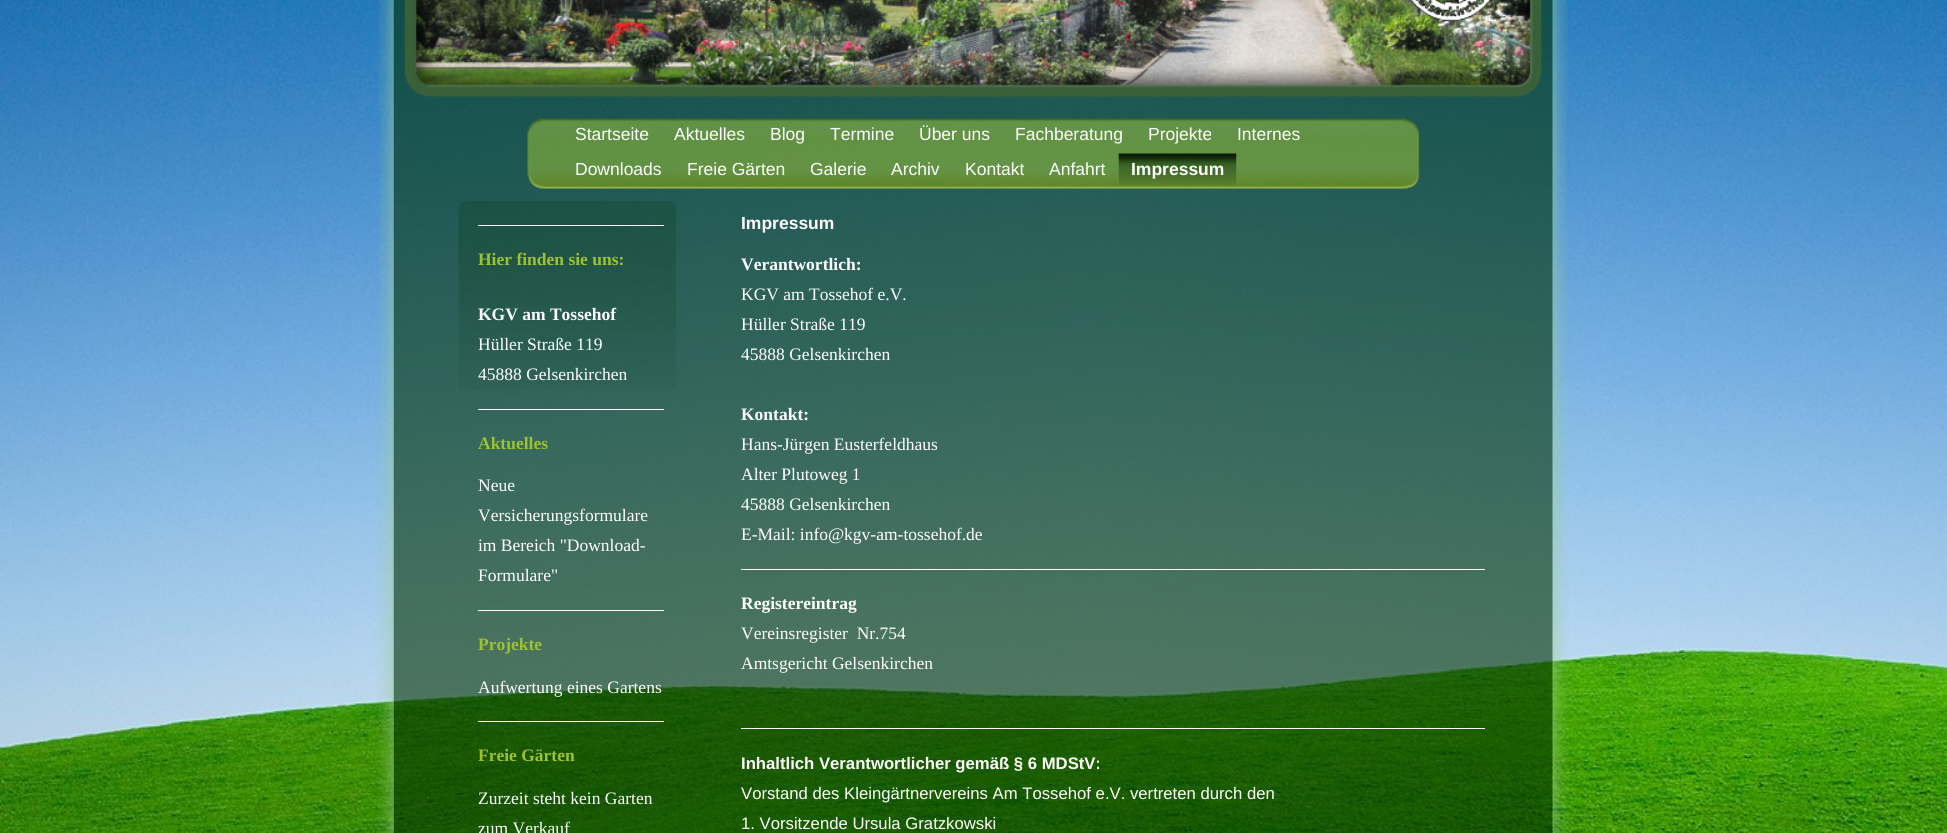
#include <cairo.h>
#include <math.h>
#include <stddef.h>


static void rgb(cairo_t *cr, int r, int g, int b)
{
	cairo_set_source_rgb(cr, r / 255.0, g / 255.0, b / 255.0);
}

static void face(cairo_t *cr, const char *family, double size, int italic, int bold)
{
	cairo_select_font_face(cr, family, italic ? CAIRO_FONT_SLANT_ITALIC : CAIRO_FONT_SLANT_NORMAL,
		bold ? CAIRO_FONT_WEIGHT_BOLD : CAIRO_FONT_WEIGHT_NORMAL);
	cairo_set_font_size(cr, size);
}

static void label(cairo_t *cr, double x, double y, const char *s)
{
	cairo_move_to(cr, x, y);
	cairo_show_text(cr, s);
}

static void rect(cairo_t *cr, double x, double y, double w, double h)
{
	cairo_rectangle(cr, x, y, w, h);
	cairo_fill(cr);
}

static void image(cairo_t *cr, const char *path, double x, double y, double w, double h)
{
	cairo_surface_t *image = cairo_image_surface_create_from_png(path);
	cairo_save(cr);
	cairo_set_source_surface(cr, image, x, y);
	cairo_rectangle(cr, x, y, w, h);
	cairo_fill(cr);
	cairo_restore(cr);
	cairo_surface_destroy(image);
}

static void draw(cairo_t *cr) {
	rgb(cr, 255, 255, 255);
	cairo_paint(cr);
	image(cr, "image0.png", 0, 0, 1947, 833);
	image(cr, "image2.png", 415, 0, 1117, 91);
	image(cr, "image1.png", 378, 0, 57, 31);
	image(cr, "image3.png", 1410, 0, 82, 22);
	image(cr, "image4.png", 1507, 0, 61, 31);
	image(cr, "image5.png", 378, 31, 1190, 75);
	image(cr, "image6.png", 379, 106, 1188, 95);
	image(cr, "image7.png", 527, 118, 892, 18);
	image(cr, "image8.png", 527, 136, 893, 53);
	face(cr, "Liberation Sans", 17.5, 0, 0);
	rgb(cr, 255, 255, 255);
	label(cr, 575, 140, "Startseite");
	label(cr, 674, 140, "Aktuelles");
	label(cr, 770, 140, "Blog");
	label(cr, 830, 140, "Termine");
	label(cr, 919, 140, "Über uns");
	label(cr, 1015, 140, "Fachberatung");
	label(cr, 1148, 140, "Projekte");
	label(cr, 1237, 140, "Internes");
	label(cr, 575, 175, "Downloads");
	label(cr, 687, 175, "Freie Gärten");
	label(cr, 810, 175, "Galerie");
	label(cr, 891, 175, "Archiv");
	label(cr, 965, 175, "Kontakt");
	label(cr, 1049, 175, "Anfahrt");
	image(cr, "image9.png", 1118, 153, 119, 33);
	face(cr, "Liberation Sans", 17.5, 0, 1);
	label(cr, 1131, 175, "Impressum");
	image(cr, "image10.png", 377, 201, 1192, 632);
	image(cr, "image11.png", 458, 201, 219, 189);
	label(cr, 741, 229, "Impressum");
	face(cr, "Liberation Serif", 17.5, 0, 1);
	label(cr, 741, 270, "Verantwortlich:");
	face(cr, "Liberation Serif", 17.5, 0, 0);
	label(cr, 741, 300, "KGV am Tossehof e.V.");
	label(cr, 741, 330, "Hüller Straße 119");
	label(cr, 741, 360, "45888 Gelsenkirchen");
	face(cr, "Liberation Serif", 17.5, 0, 1);
	label(cr, 741, 420, "Kontakt:");
	face(cr, "Liberation Serif", 17.5, 0, 0);
	label(cr, 741, 450, "Hans-Jürgen Eusterfeldhaus");
	label(cr, 741, 480, "Alter Plutoweg 1");
	label(cr, 741, 510, "45888 Gelsenkirchen");
	label(cr, 741, 540, "E-Mail: info@kgv-am-tossehof.de");
	rect(cr, 741, 569, 744, 1);
	face(cr, "Liberation Serif", 17.5, 0, 1);
	label(cr, 741, 609, "Registereintrag");
	face(cr, "Liberation Serif", 17.5, 0, 0);
	label(cr, 741, 639, "Vereinsregister  Nr.754");
	label(cr, 741, 669, "Amtsgericht Gelsenkirchen");
	rect(cr, 741, 728, 744, 1);
	face(cr, "Liberation Sans", 16.7, 0, 1);
	label(cr, 741, 769, "Inhaltlich Verantwortlicher gemäß § 6 MDStV:");
	face(cr, "Liberation Sans", 16.7, 0, 0);
	label(cr, 741, 799, "Vorstand des Kleingärtnervereins Am Tossehof e.V. vertreten durch den");
	label(cr, 741, 829, "1. Vorsitzende Ursula Gratzkowski");
	rect(cr, 478, 225, 186, 1);
	face(cr, "Liberation Serif", 17.5, 0, 1);
	rgb(cr, 157, 194, 48);
	label(cr, 478, 265, "Hier finden sie uns:");
	rgb(cr, 255, 255, 255);
	label(cr, 478, 320, "KGV am Tossehof");
	face(cr, "Liberation Serif", 17.5, 0, 0);
	label(cr, 478, 350, "Hüller Straße 119");
	label(cr, 478, 380, "45888 Gelsenkirchen");
	rect(cr, 478, 409, 186, 1);
	face(cr, "Liberation Serif", 17.5, 0, 1);
	rgb(cr, 157, 194, 48);
	label(cr, 478, 449, "Aktuelles");
	face(cr, "Liberation Serif", 17.5, 0, 0);
	rgb(cr, 255, 255, 255);
	label(cr, 478, 491, "Neue");
	label(cr, 478, 521, "Versicherungsformulare");
	label(cr, 478, 551, "im Bereich \"Download-");
	label(cr, 478, 581, "Formulare\"");
	rect(cr, 478, 610, 186, 1);
	face(cr, "Liberation Serif", 17.5, 0, 1);
	rgb(cr, 157, 194, 48);
	label(cr, 478, 650, "Projekte");
	face(cr, "Liberation Serif", 17.5, 0, 0);
	rgb(cr, 255, 255, 255);
	label(cr, 478, 693, "Aufwertung eines Gartens");
	rect(cr, 478, 721, 186, 1);
	face(cr, "Liberation Serif", 17.5, 0, 1);
	rgb(cr, 157, 194, 48);
	label(cr, 478, 761, "Freie Gärten");
	face(cr, "Liberation Serif", 17.5, 0, 0);
	rgb(cr, 255, 255, 255);
	label(cr, 478, 804, "Zurzeit steht kein Garten");
	label(cr, 478, 834, "zum Verkauf");
}

int main(void) {
	cairo_surface_t *surface = cairo_image_surface_create(CAIRO_FORMAT_RGB24, 1947, 833);
	cairo_t *cr = cairo_create(surface);
	cairo_font_options_t *options = cairo_font_options_create();
	cairo_font_options_set_hint_metrics(options, CAIRO_HINT_METRICS_OFF);
	cairo_font_options_set_hint_style(options, CAIRO_HINT_STYLE_NONE);
	cairo_set_font_options(cr, options);
	cairo_set_miter_limit(cr, 4);
	draw(cr);
	cairo_surface_write_to_png(surface, "render.png");
	cairo_font_options_destroy(options);
	cairo_destroy(cr);
	cairo_surface_destroy(surface);
	return 0;
}
